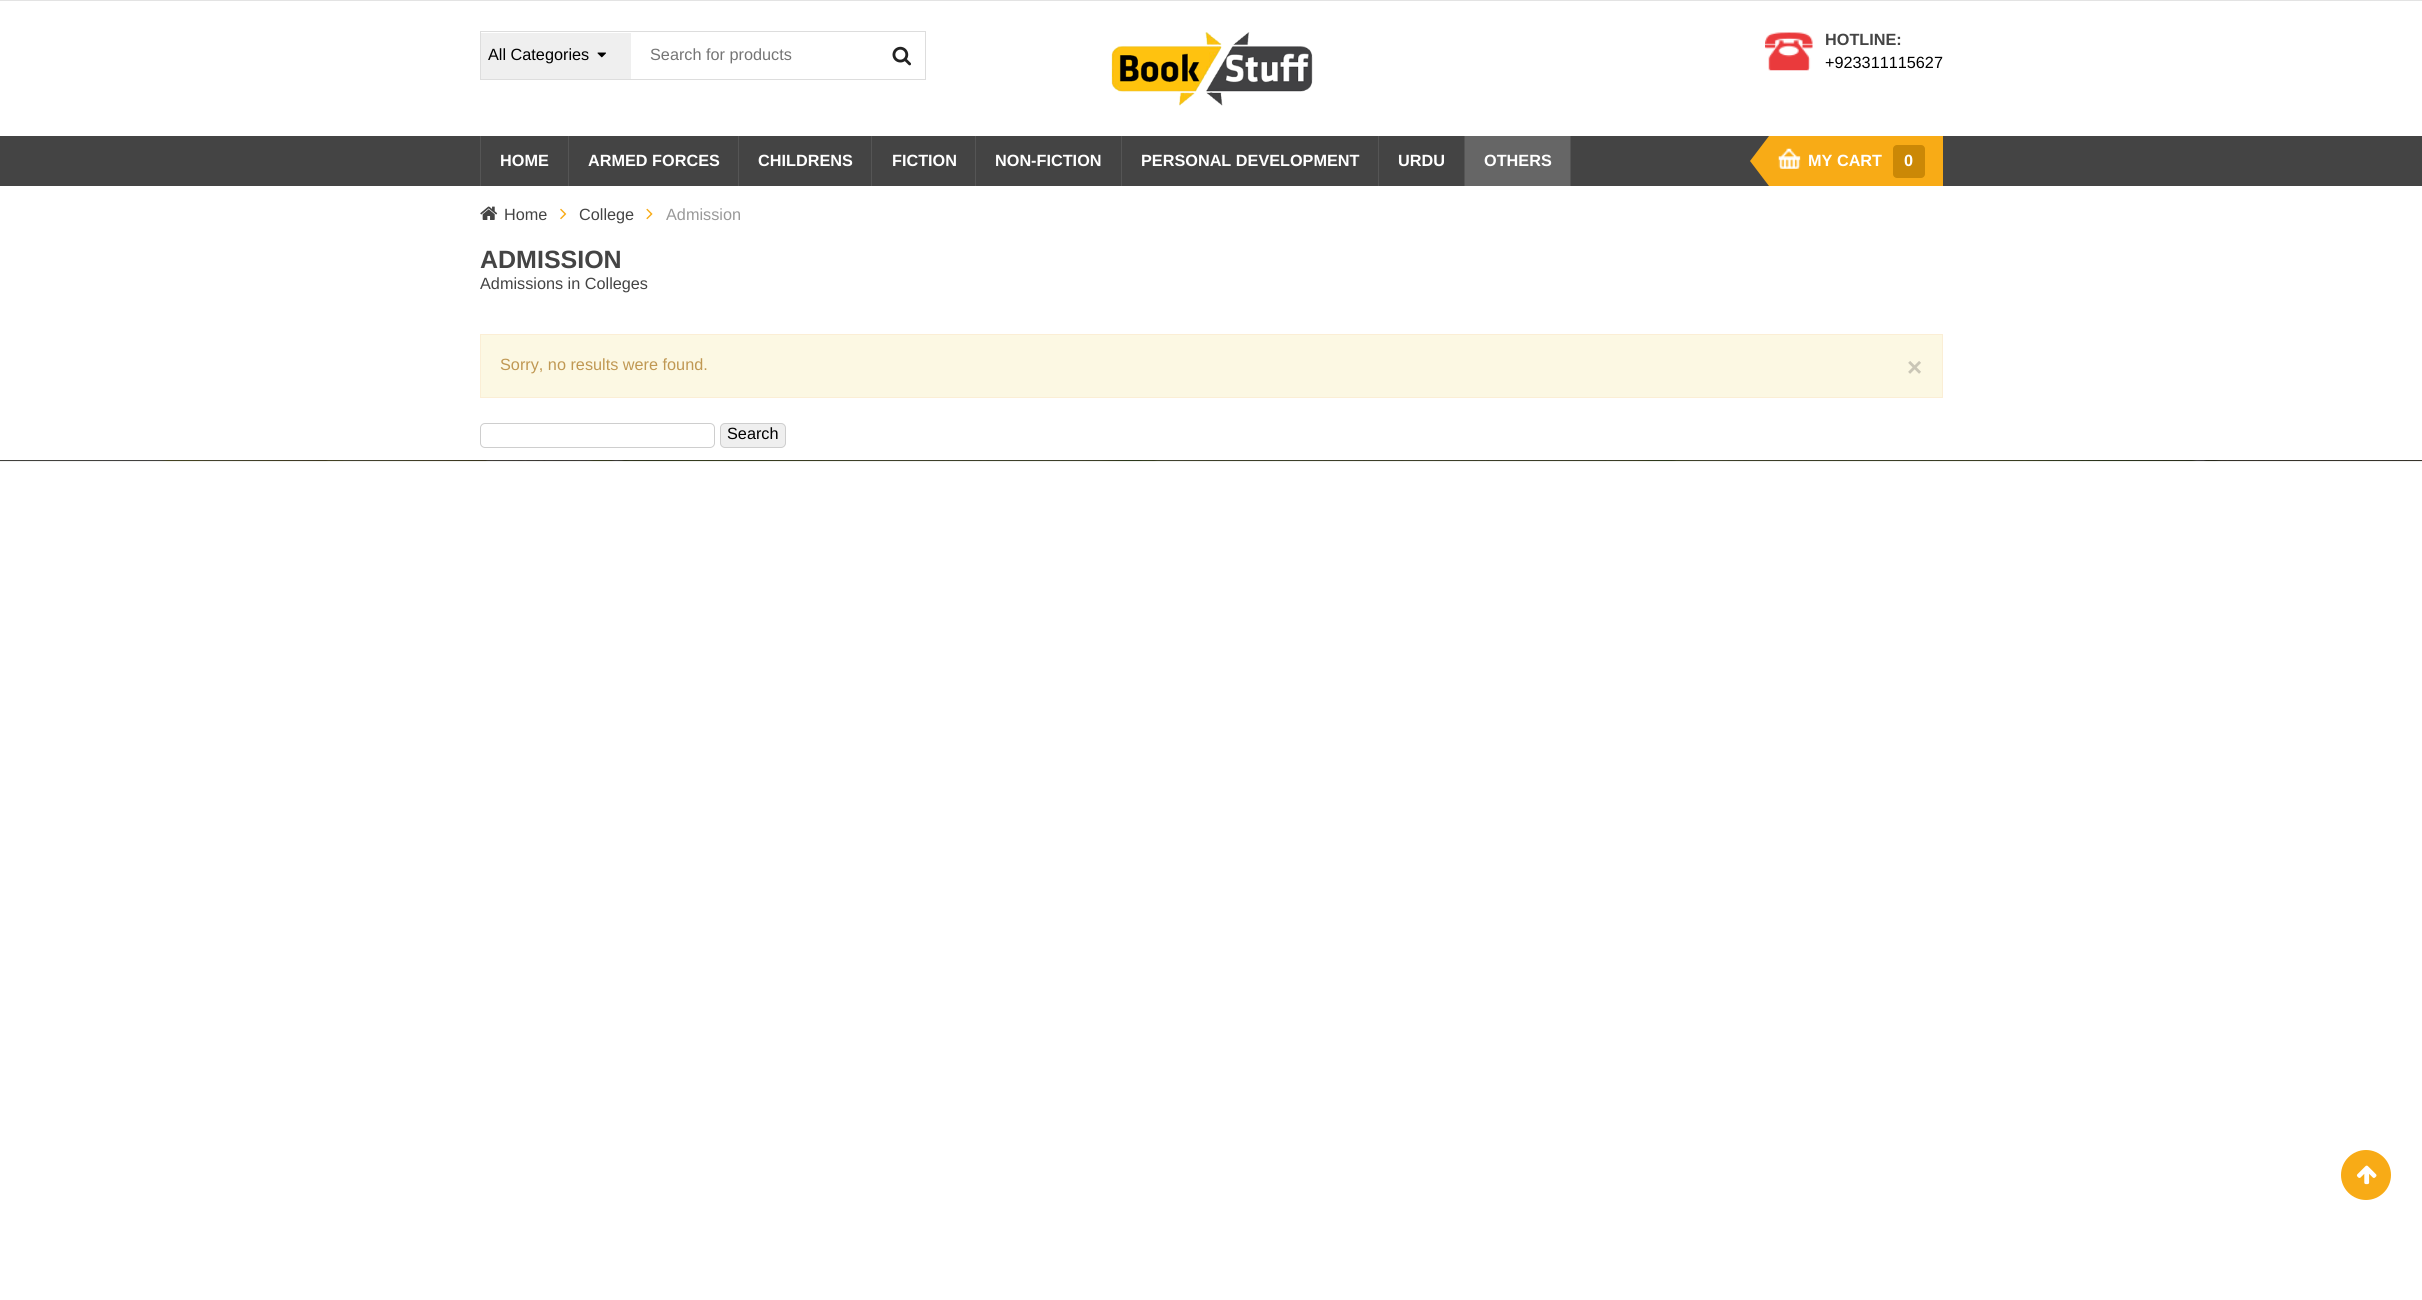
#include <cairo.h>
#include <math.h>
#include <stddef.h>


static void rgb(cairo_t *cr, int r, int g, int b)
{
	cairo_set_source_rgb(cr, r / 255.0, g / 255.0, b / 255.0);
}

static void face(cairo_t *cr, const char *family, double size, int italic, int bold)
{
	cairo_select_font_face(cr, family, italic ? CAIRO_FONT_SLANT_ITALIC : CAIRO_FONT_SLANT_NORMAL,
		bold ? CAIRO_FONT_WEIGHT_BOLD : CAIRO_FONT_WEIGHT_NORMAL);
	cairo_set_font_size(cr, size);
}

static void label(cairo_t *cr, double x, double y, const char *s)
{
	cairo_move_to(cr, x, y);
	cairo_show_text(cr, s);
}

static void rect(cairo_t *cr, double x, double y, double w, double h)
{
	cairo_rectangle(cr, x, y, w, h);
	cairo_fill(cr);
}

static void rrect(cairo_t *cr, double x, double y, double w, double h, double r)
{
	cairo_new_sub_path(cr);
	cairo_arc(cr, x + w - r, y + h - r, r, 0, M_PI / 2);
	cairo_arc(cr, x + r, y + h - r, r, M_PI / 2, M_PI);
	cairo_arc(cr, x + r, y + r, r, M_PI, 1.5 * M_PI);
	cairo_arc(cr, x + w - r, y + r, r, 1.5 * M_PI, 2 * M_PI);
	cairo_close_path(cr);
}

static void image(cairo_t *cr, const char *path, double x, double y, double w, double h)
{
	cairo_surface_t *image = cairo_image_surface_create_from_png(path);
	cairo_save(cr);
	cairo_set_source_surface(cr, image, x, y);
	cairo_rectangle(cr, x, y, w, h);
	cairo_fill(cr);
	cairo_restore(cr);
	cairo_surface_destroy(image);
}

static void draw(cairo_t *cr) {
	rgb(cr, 255, 255, 255);
	cairo_paint(cr);
	rgb(cr, 227, 227, 227);
	rect(cr, 0, 0, 2422, 1);
	image(cr, "image0.png", 1111, 32, 202, 74);
	cairo_rectangle(cr, 480.5, 31.5, 445, 48);
	rgb(cr, 221, 221, 221);
	cairo_set_line_width(cr, 1);
	cairo_stroke(cr);
	rgb(cr, 239, 239, 239);
	rect(cr, 481, 33, 150, 46);
	face(cr, "Liberation Sans", 16.25, 0, 0);
	rgb(cr, 0, 0, 0);
	label(cr, 488, 60, "All Categories");
	image(cr, "image1.png", 597, 52, 9, 6);
	rgb(cr, 117, 117, 117);
	label(cr, 650, 60, "Search for products");
	image(cr, "image2.png", 892, 46, 19, 20);
	image(cr, "image3.png", 1765, 32, 48, 39);
	face(cr, "Liberation Sans", 16.25, 0, 1);
	rgb(cr, 68, 68, 68);
	label(cr, 1825, 45, "HOTLINE:");
	face(cr, "Liberation Sans", 16.25, 0, 0);
	rgb(cr, 0, 0, 0);
	label(cr, 1825, 68, "+923311115627");
	rgb(cr, 68, 68, 68);
	rect(cr, 0, 136, 2422, 50);
	rgb(cr, 85, 85, 85);
	rect(cr, 568, 136, 1, 50);
	rect(cr, 480, 136, 1, 50);
	face(cr, "Liberation Sans", 16.25, 0, 1);
	rgb(cr, 255, 255, 255);
	label(cr, 500, 166, "HOME");
	rgb(cr, 85, 85, 85);
	rect(cr, 738, 136, 1, 50);
	rgb(cr, 255, 255, 255);
	label(cr, 588, 166, "ARMED FORCES");
	rgb(cr, 85, 85, 85);
	rect(cr, 871, 136, 1, 50);
	rgb(cr, 255, 255, 255);
	label(cr, 758, 166, "CHILDRENS");
	rgb(cr, 85, 85, 85);
	rect(cr, 975, 136, 1, 50);
	rgb(cr, 255, 255, 255);
	label(cr, 892, 166, "FICTION");
	rgb(cr, 85, 85, 85);
	rect(cr, 1121, 136, 1, 50);
	rgb(cr, 255, 255, 255);
	label(cr, 995, 166, "NON-FICTION");
	rgb(cr, 85, 85, 85);
	rect(cr, 1378, 136, 1, 50);
	rgb(cr, 255, 255, 255);
	label(cr, 1141, 166, "PERSONAL DEVELOPMENT");
	rgb(cr, 85, 85, 85);
	rect(cr, 1464, 136, 1, 50);
	rgb(cr, 255, 255, 255);
	label(cr, 1398, 166, "URDU");
	rgb(cr, 102, 102, 102);
	rect(cr, 1465, 136, 105, 50);
	rgb(cr, 85, 85, 85);
	rect(cr, 1570, 136, 1, 50);
	rgb(cr, 255, 255, 255);
	label(cr, 1484, 166, "OTHERS");
	rgb(cr, 248, 171, 22);
	rect(cr, 1769, 136, 174, 50);
	image(cr, "image4.png", 1778, 148, 23, 21);
	cairo_new_path(cr);
	cairo_move_to(cr, 1769, 136);
	cairo_line_to(cr, 1769, 186);
	cairo_line_to(cr, 1750, 161);
	cairo_close_path(cr);
	cairo_fill(cr);
	rgb(cr, 255, 255, 255);
	label(cr, 1808, 166, "MY CART");
	rgb(cr, 203, 136, 6);
	rrect(cr, 1893, 145, 32, 33, 4);
	cairo_fill(cr);
	rgb(cr, 255, 255, 255);
	label(cr, 1904, 166, "0");
	image(cr, "image5.png", 480, 206, 18, 14);
	face(cr, "Liberation Sans", 16.25, 0, 0);
	rgb(cr, 68, 68, 68);
	label(cr, 504, 220, "Home");
	image(cr, "image6.png", 560, 208, 7, 12);
	label(cr, 579, 220, "College");
	image(cr, "image7.png", 646, 208, 7, 12);
	rgb(cr, 153, 153, 153);
	label(cr, 666, 220, "Admission");
	face(cr, "Liberation Sans", 25, 0, 1);
	rgb(cr, 68, 68, 68);
	label(cr, 480, 268, "ADMISSION");
	face(cr, "Liberation Sans", 16.25, 0, 0);
	label(cr, 480, 289, "Admissions in Colleges");
	rgb(cr, 252, 248, 227);
	cairo_rectangle(cr, 480.5, 334.5, 1462, 63);
	cairo_fill_preserve(cr);
	rgb(cr, 251, 238, 213);
	cairo_stroke(cr);
	rgb(cr, 192, 152, 83);
	label(cr, 500, 370, "Sorry, no results were found.");
	face(cr, "Liberation Sans", 26, 0, 1);
	rgb(cr, 202, 198, 182);
	label(cr, 1907, 376, "×");
	rrect(cr, 480.5, 423.5, 234, 24, 4.5);
	rgb(cr, 206, 206, 206);
	cairo_stroke(cr);
	rgb(cr, 239, 239, 239);
	rrect(cr, 720.5, 423.5, 65, 24, 4.5);
	cairo_fill_preserve(cr);
	rgb(cr, 206, 206, 206);
	cairo_stroke(cr);
	face(cr, "Liberation Sans", 16.25, 0, 0);
	rgb(cr, 0, 0, 0);
	label(cr, 727, 439, "Search");
	image(cr, "image8.png", 0, 460, 2422, 2);
	cairo_set_source_rgba(cr, 1, 1, 1, 0.1);
	rect(cr, 0, 460, 2422, 1);
	rgb(cr, 248, 171, 22);
	cairo_arc(cr, 2366, 1175, 25, 0, 2 * M_PI);
	cairo_fill(cr);
	image(cr, "image9.png", 2356, 1165, 21, 20);
}

int main(void) {
	cairo_surface_t *surface = cairo_image_surface_create(CAIRO_FORMAT_RGB24, 2422, 1300);
	cairo_t *cr = cairo_create(surface);
	cairo_font_options_t *options = cairo_font_options_create();
	cairo_font_options_set_hint_metrics(options, CAIRO_HINT_METRICS_OFF);
	cairo_font_options_set_hint_style(options, CAIRO_HINT_STYLE_NONE);
	cairo_set_font_options(cr, options);
	cairo_set_miter_limit(cr, 4);
	draw(cr);
	cairo_surface_write_to_png(surface, "render.png");
	cairo_font_options_destroy(options);
	cairo_destroy(cr);
	cairo_surface_destroy(surface);
	return 0;
}
